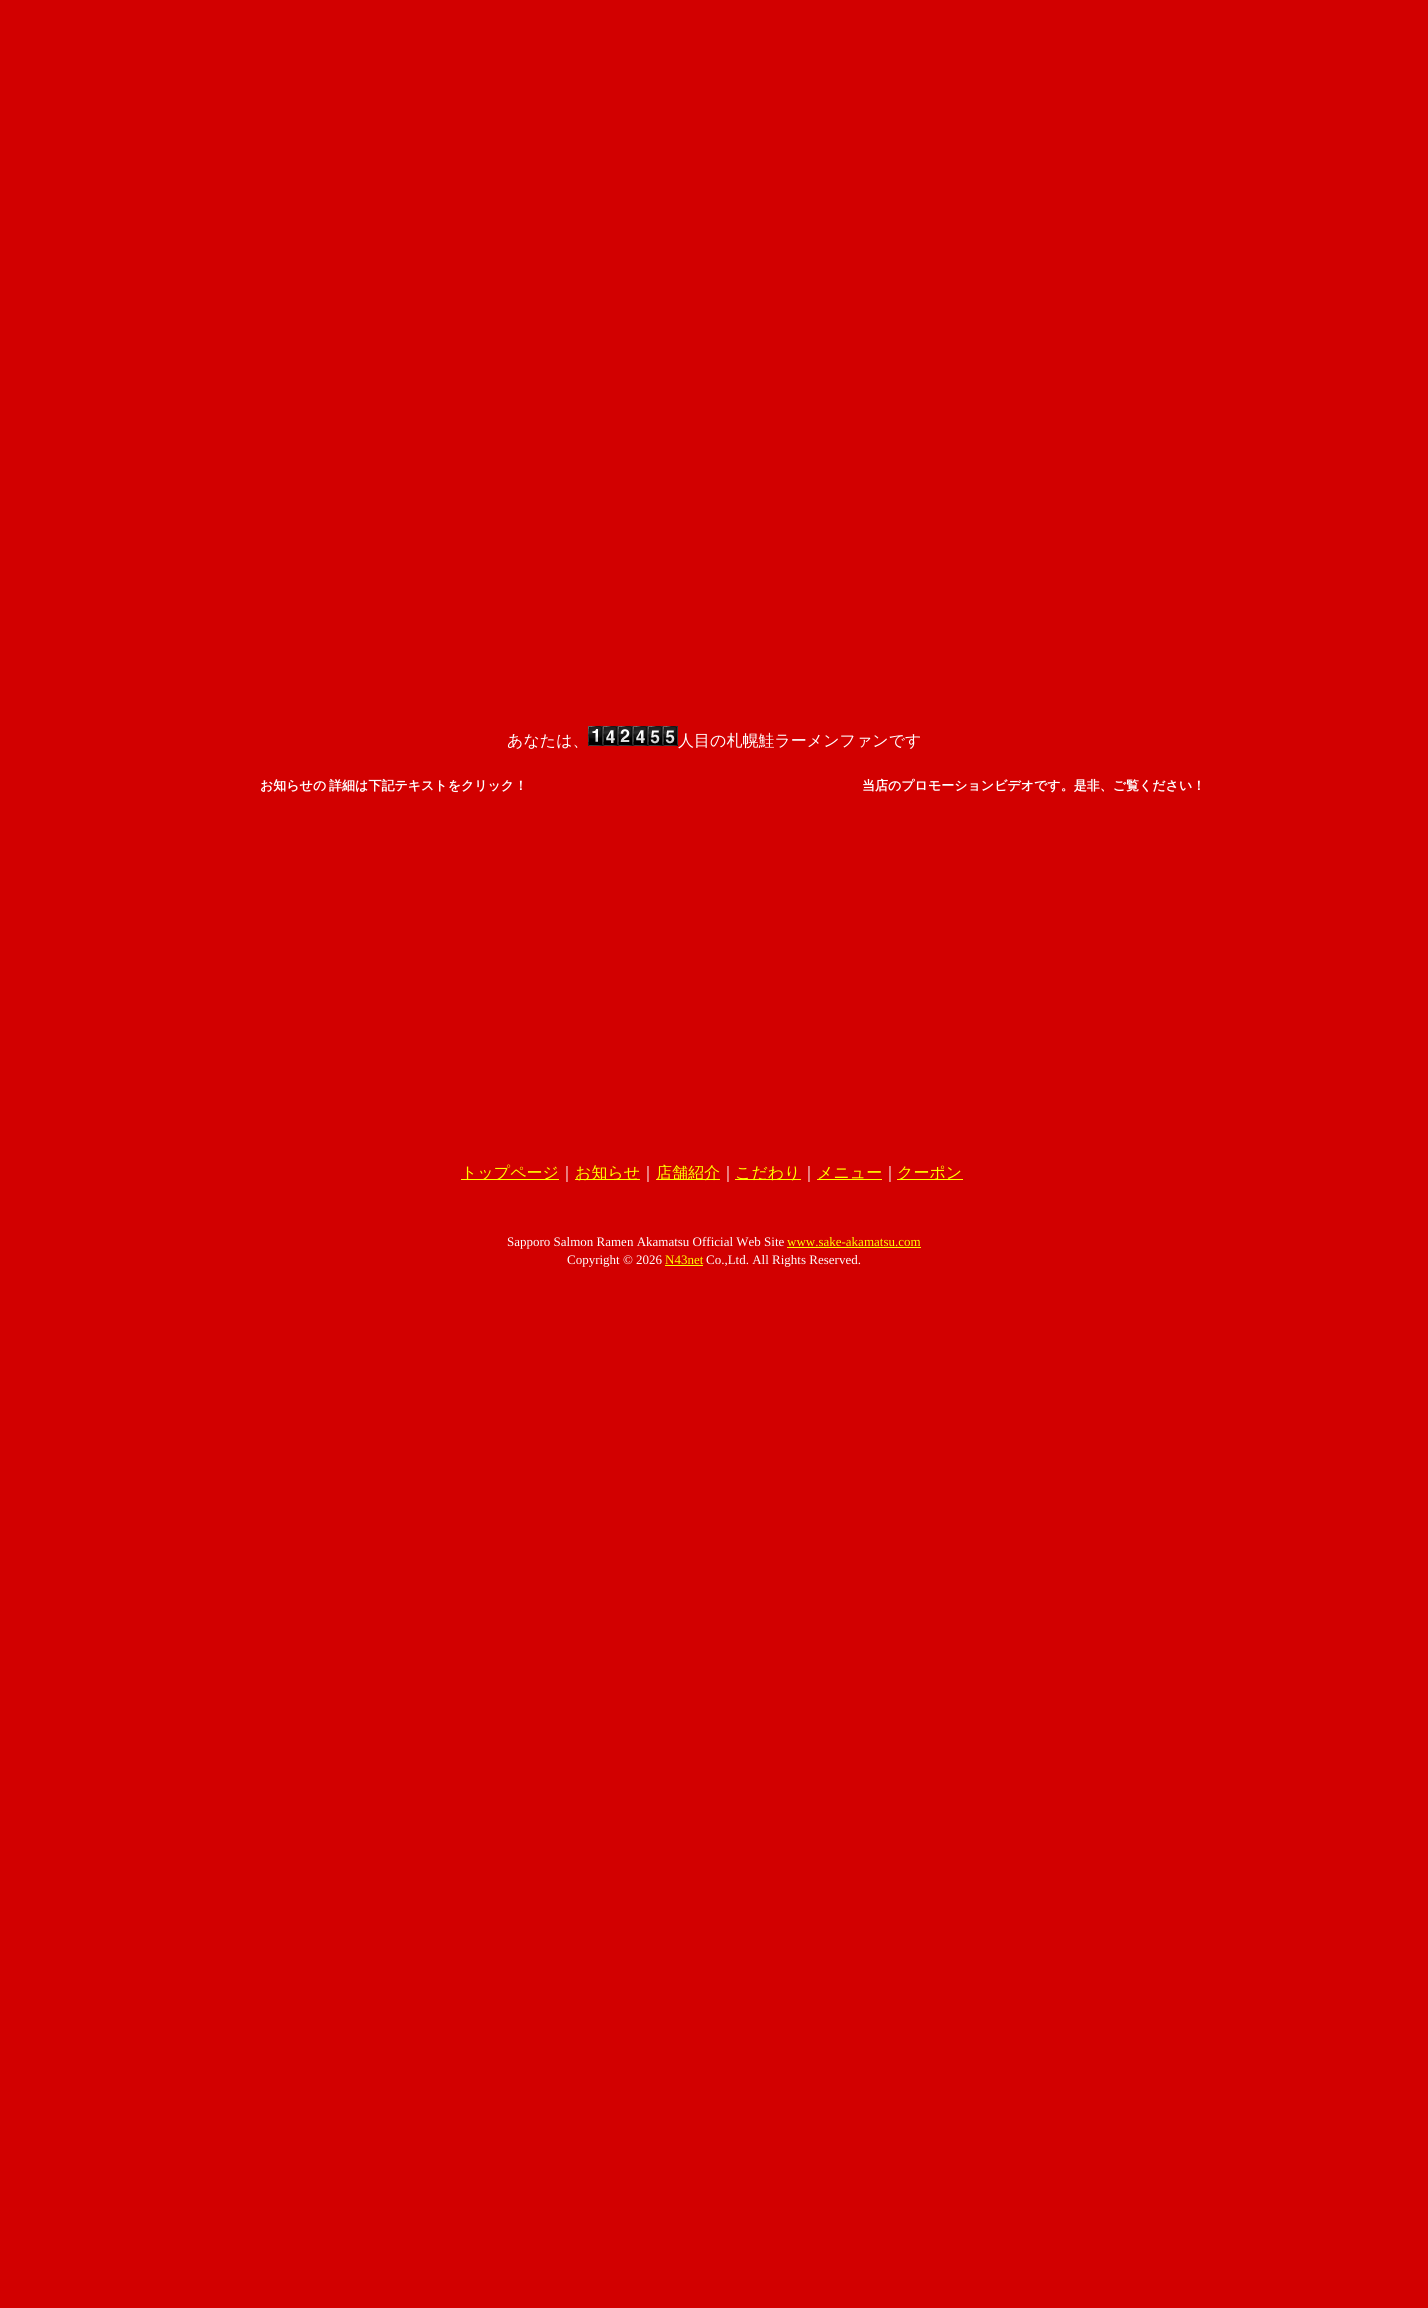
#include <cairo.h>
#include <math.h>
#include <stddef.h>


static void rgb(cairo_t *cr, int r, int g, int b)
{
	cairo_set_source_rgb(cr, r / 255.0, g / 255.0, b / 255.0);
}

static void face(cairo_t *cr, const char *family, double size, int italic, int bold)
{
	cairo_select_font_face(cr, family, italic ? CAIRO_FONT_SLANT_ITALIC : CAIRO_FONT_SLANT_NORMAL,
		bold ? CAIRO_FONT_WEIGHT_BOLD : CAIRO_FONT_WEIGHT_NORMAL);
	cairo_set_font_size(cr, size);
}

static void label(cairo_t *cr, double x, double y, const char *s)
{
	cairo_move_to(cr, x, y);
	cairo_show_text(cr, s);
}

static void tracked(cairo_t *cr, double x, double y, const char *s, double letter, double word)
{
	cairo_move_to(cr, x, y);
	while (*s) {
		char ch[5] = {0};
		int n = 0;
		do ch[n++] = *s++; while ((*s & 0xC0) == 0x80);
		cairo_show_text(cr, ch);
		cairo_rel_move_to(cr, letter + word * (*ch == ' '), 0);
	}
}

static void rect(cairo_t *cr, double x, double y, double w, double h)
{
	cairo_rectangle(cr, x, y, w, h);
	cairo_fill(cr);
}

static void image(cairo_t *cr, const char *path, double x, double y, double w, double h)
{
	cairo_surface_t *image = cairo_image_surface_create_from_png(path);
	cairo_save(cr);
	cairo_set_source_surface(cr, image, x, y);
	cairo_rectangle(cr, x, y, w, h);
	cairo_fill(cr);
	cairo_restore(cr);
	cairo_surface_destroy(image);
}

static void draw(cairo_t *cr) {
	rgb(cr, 210, 0, 0);
	cairo_paint(cr);
	face(cr, "WenQuanYi Zen Hei Medium", 16, 0, 0);
	rgb(cr, 255, 255, 255);
	label(cr, 507, 746, "あなたは、");
	image(cr, "image0.png", 588, 726, 90, 20);
	label(cr, 678, 746, "人目の札幌鮭ラーメンファンです");
	face(cr, "WenQuanYi Zen Hei", 13, 0, 1);
	tracked(cr, 260, 790, "お知らせの 詳細は下記テキストをクリック！", 0, -1);
	label(cr, 862, 790, "当店のプロモーションビデオです。是非、ご覧ください！");
	rgb(cr, 255, 255, 0);
	rect(cr, 461, 1179, 98, 1);
	face(cr, "WenQuanYi Zen Hei Medium", 16, 0, 0);
	label(cr, 461, 1178, "トップページ");
	rgb(cr, 255, 255, 255);
	label(cr, 559, 1178, "｜");
	rgb(cr, 255, 255, 0);
	rect(cr, 575, 1179, 65, 1);
	label(cr, 575, 1178, "お知らせ");
	rgb(cr, 255, 255, 255);
	label(cr, 640, 1178, "｜");
	rgb(cr, 255, 255, 0);
	rect(cr, 656, 1179, 64, 1);
	label(cr, 656, 1178, "店舗紹介");
	rgb(cr, 255, 255, 255);
	label(cr, 720, 1178, "｜");
	rgb(cr, 255, 255, 0);
	rect(cr, 735, 1179, 66, 1);
	label(cr, 735, 1178, "こだわり");
	rgb(cr, 255, 255, 255);
	label(cr, 801, 1178, "｜");
	rgb(cr, 255, 255, 0);
	label(cr, 817, 1178, "メニュー");
	rect(cr, 817, 1179, 65, 1);
	rgb(cr, 255, 255, 255);
	label(cr, 882, 1178, "｜");
	rgb(cr, 255, 255, 0);
	rect(cr, 897, 1179, 66, 1);
	label(cr, 897, 1178, "クーポン");
	face(cr, "Liberation Serif", 13, 0, 0);
	rgb(cr, 255, 255, 255);
	label(cr, 507, 1246, "Sapporo Salmon Ramen Akamatsu Official Web Site");
	rgb(cr, 255, 255, 0);
	label(cr, 787, 1246, "www.sake-akamatsu.com");
	rect(cr, 787, 1247, 134, 1);
	rgb(cr, 255, 255, 255);
	label(cr, 567, 1264, "Copyright © 2026");
	rgb(cr, 255, 255, 0);
	label(cr, 665, 1264, "N43net");
	rect(cr, 665, 1265, 38, 1);
	rgb(cr, 255, 255, 255);
	label(cr, 706, 1264, "Co.,Ltd. All Rights Reserved.");
}

int main(void) {
	cairo_surface_t *surface = cairo_image_surface_create(CAIRO_FORMAT_RGB24, 1428, 2308);
	cairo_t *cr = cairo_create(surface);
	cairo_font_options_t *options = cairo_font_options_create();
	cairo_font_options_set_hint_metrics(options, CAIRO_HINT_METRICS_OFF);
	cairo_font_options_set_hint_style(options, CAIRO_HINT_STYLE_NONE);
	cairo_set_font_options(cr, options);
	cairo_set_miter_limit(cr, 4);
	draw(cr);
	cairo_surface_write_to_png(surface, "render.png");
	cairo_font_options_destroy(options);
	cairo_destroy(cr);
	cairo_surface_destroy(surface);
	return 0;
}
